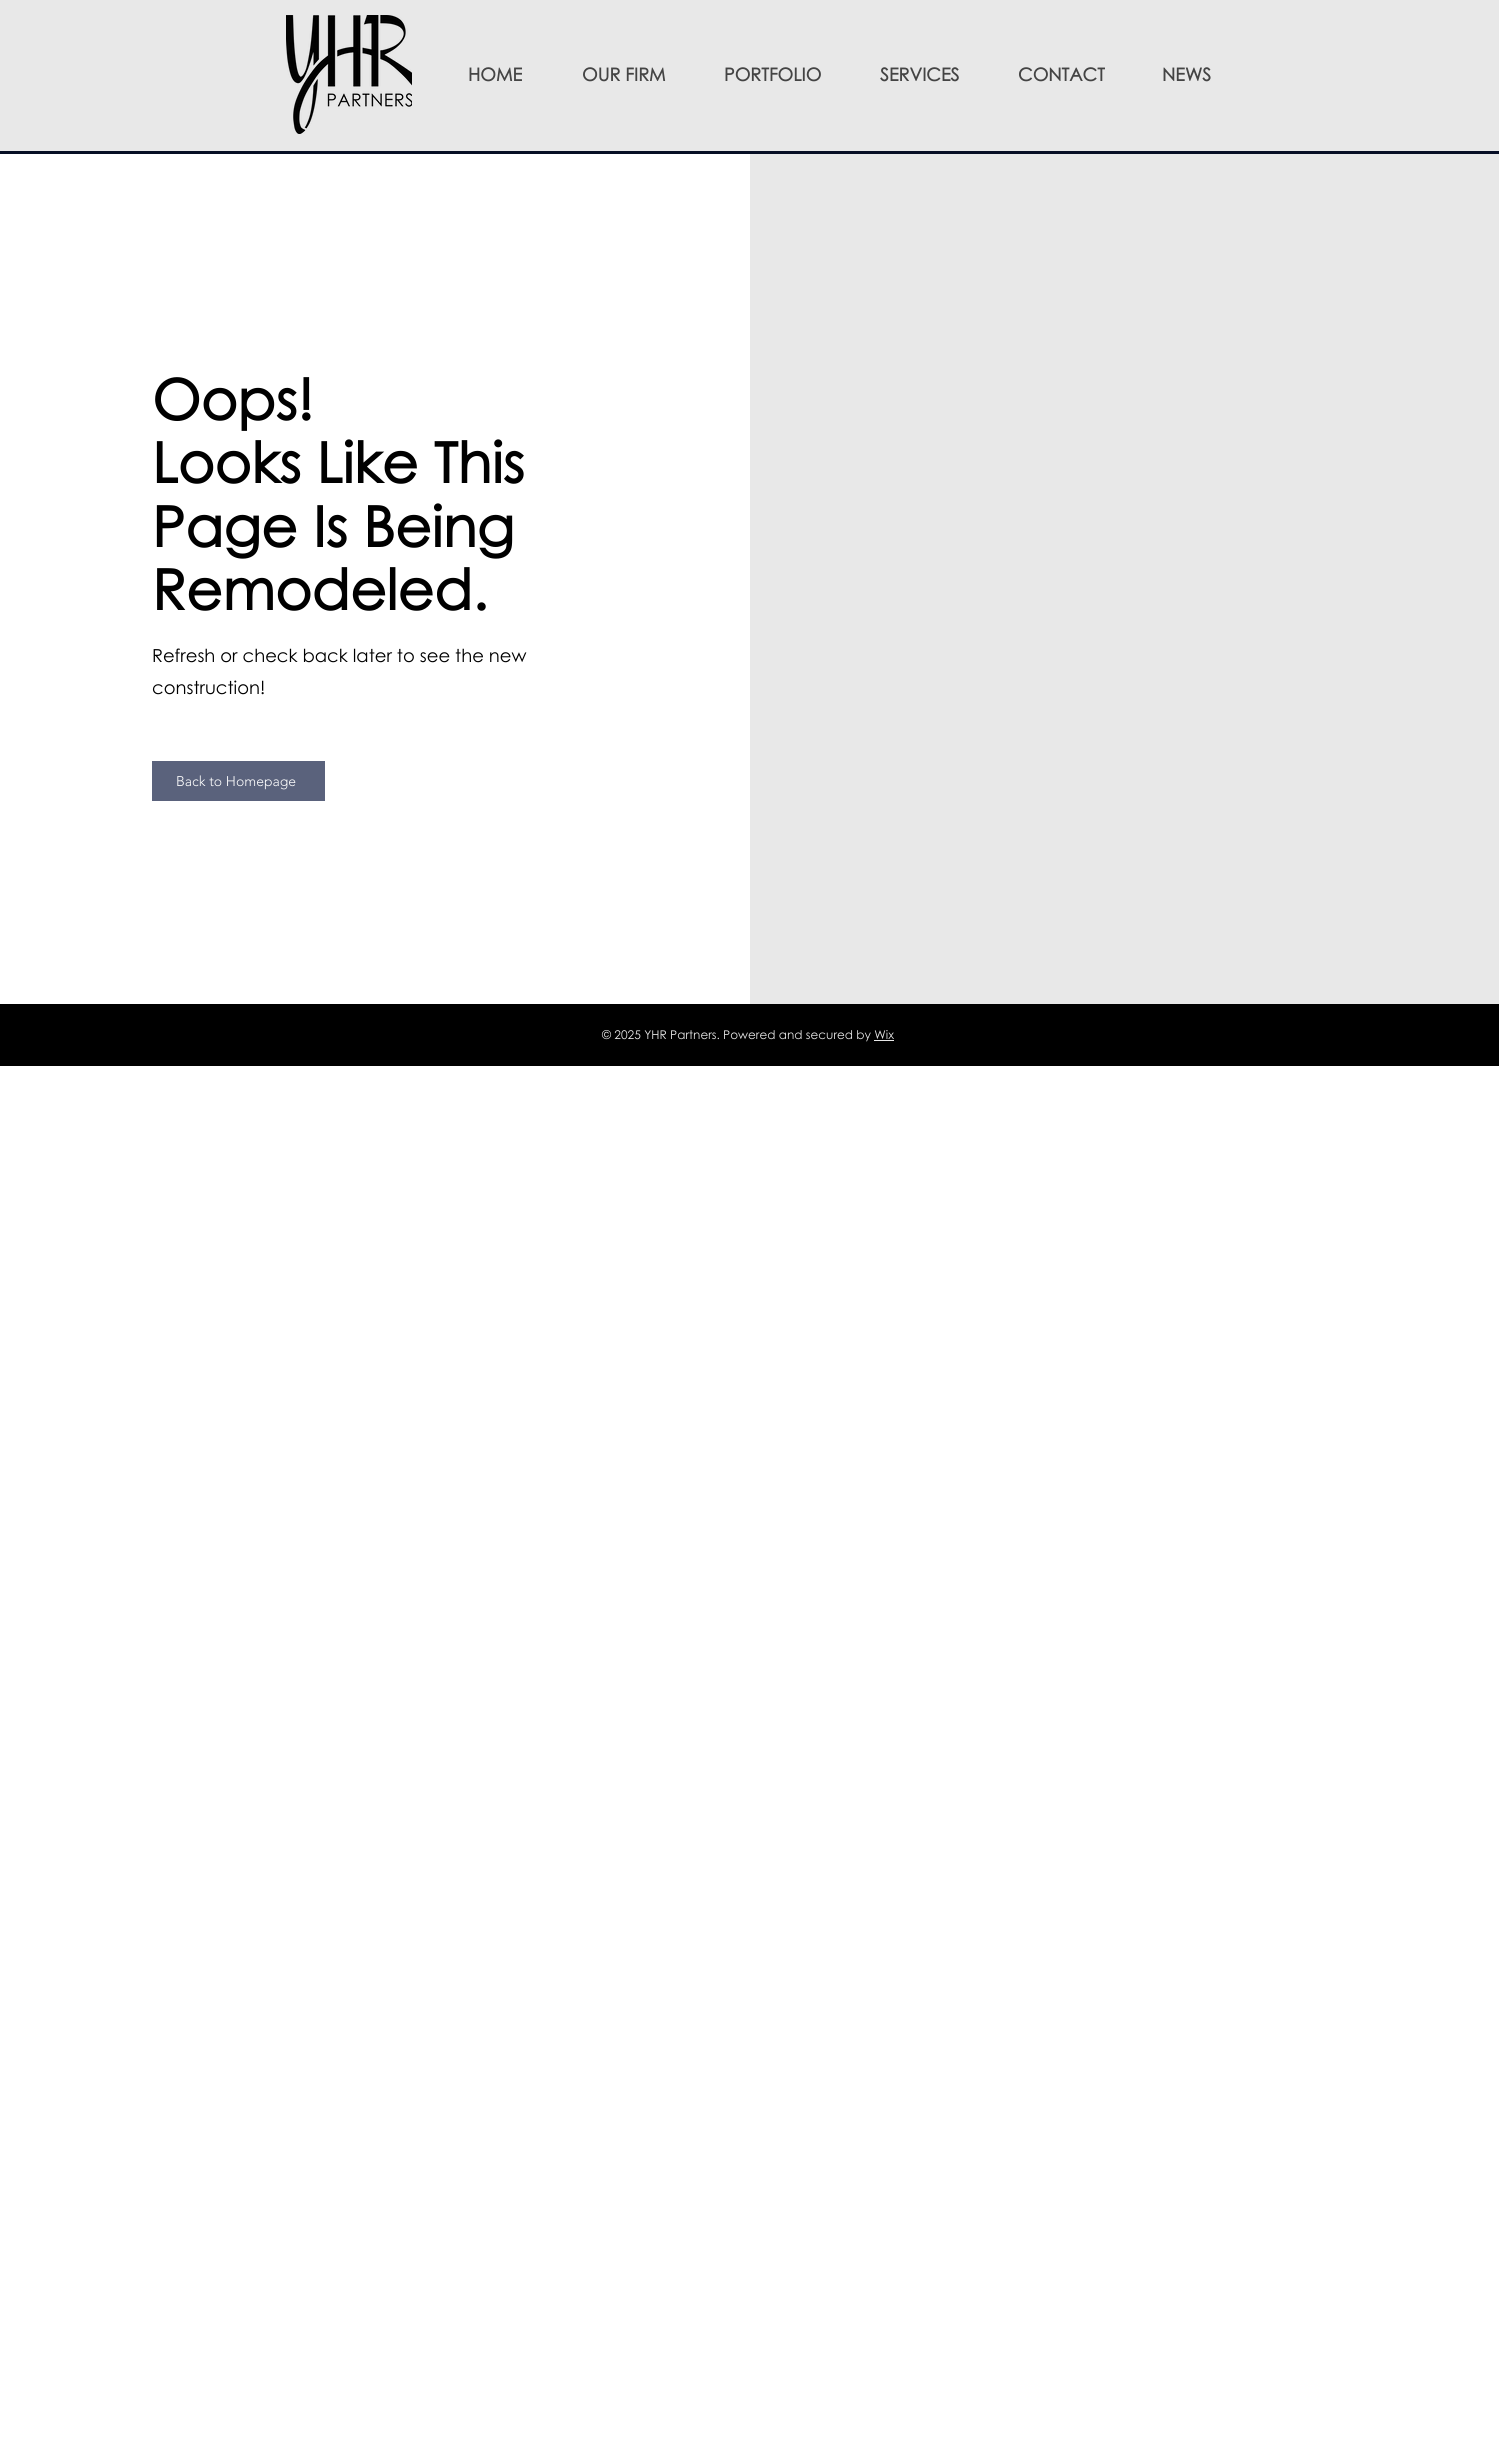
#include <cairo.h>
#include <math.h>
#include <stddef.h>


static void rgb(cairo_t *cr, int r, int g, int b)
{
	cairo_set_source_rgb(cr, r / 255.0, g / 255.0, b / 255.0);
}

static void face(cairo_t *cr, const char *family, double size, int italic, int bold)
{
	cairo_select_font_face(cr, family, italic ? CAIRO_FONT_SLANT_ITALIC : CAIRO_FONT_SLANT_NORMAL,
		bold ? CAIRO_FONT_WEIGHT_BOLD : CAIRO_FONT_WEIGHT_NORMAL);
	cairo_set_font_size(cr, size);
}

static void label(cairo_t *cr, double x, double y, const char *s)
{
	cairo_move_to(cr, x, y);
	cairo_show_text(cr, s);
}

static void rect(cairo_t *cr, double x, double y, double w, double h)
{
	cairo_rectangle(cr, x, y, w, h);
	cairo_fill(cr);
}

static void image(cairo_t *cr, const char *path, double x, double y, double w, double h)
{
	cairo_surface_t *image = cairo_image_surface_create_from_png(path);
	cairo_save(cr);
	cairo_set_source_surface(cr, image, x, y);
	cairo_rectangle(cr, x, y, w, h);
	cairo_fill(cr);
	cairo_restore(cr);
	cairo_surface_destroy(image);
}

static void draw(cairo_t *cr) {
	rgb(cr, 255, 255, 255);
	cairo_paint(cr);
	rgb(cr, 232, 232, 232);
	rect(cr, 0, 0, 1499, 151);
	rgb(cr, 6, 14, 37);
	rect(cr, 0, 151, 1499, 3);
	image(cr, "image0.png", 286, 15, 126, 119);
	face(cr, "Century Gothic", 18, 0, 1);
	rgb(cr, 68, 68, 68);
	label(cr, 468, 81, "HOME");
	label(cr, 582, 81, "OUR FIRM");
	label(cr, 724, 81, "PORTFOLIO");
	label(cr, 880, 81, "SERVICES");
	label(cr, 1018, 81, "CONTACT");
	label(cr, 1162, 81, "NEWS");
	face(cr, "Century Gothic", 56, 0, 1);
	rgb(cr, 0, 0, 0);
	label(cr, 152, 420, "Oops!");
	label(cr, 152, 483, "Looks Like This");
	label(cr, 152, 547, "Page Is Being");
	label(cr, 152, 610, "Remodeled.");
	face(cr, "Century Gothic", 18, 0, 0);
	label(cr, 152, 662, "Refresh or check back later to see the new");
	label(cr, 152, 694, "construction!");
	rgb(cr, 90, 98, 124);
	rect(cr, 152, 761, 173, 40);
	face(cr, "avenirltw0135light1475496 Light", 14, 0, 0);
	rgb(cr, 255, 255, 255);
	label(cr, 176, 786, "Back to Homepage");
	rgb(cr, 232, 232, 232);
	rect(cr, 750, 154, 749, 850);
	rgb(cr, 0, 0, 0);
	rect(cr, 0, 1004, 1499, 62);
	face(cr, "Century Gothic", 12, 0, 0);
	rgb(cr, 232, 232, 232);
	label(cr, 602, 1039, "© 2025 YHR Partners. Powered and secured by Wix");
	rect(cr, 874, 1040, 20, 1);
}

int main(void) {
	cairo_surface_t *surface = cairo_image_surface_create(CAIRO_FORMAT_RGB24, 1499, 2462);
	cairo_t *cr = cairo_create(surface);
	cairo_font_options_t *options = cairo_font_options_create();
	cairo_font_options_set_hint_metrics(options, CAIRO_HINT_METRICS_OFF);
	cairo_font_options_set_hint_style(options, CAIRO_HINT_STYLE_NONE);
	cairo_set_font_options(cr, options);
	cairo_set_miter_limit(cr, 4);
	draw(cr);
	cairo_surface_write_to_png(surface, "render.png");
	cairo_font_options_destroy(options);
	cairo_destroy(cr);
	cairo_surface_destroy(surface);
	return 0;
}
